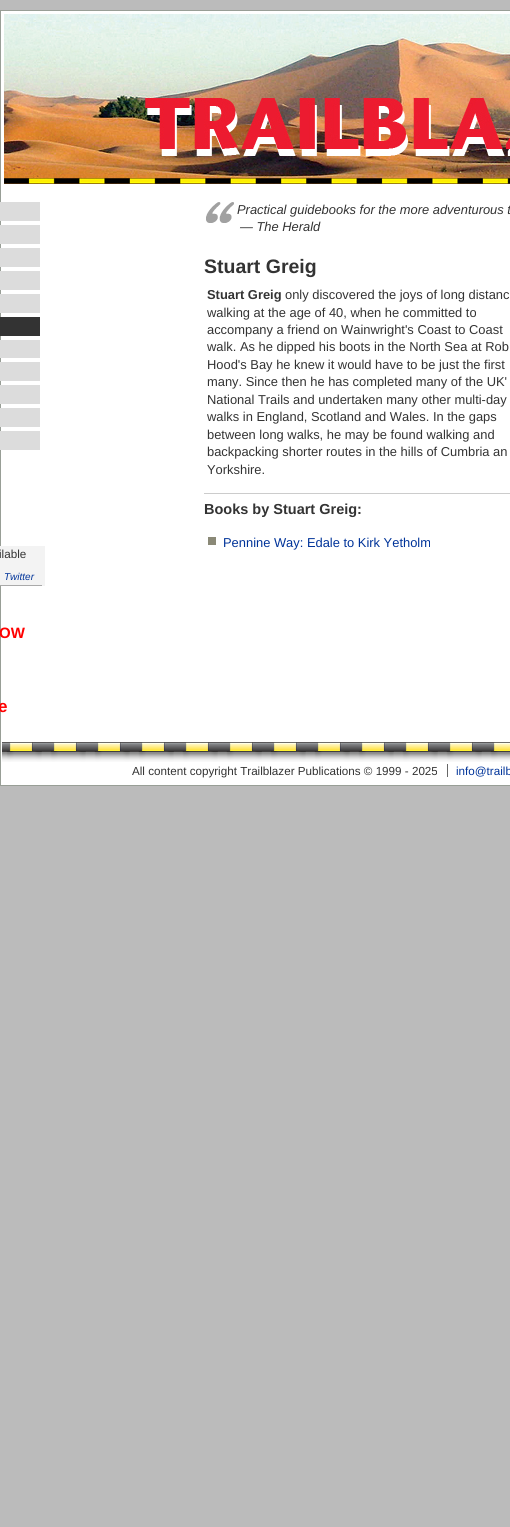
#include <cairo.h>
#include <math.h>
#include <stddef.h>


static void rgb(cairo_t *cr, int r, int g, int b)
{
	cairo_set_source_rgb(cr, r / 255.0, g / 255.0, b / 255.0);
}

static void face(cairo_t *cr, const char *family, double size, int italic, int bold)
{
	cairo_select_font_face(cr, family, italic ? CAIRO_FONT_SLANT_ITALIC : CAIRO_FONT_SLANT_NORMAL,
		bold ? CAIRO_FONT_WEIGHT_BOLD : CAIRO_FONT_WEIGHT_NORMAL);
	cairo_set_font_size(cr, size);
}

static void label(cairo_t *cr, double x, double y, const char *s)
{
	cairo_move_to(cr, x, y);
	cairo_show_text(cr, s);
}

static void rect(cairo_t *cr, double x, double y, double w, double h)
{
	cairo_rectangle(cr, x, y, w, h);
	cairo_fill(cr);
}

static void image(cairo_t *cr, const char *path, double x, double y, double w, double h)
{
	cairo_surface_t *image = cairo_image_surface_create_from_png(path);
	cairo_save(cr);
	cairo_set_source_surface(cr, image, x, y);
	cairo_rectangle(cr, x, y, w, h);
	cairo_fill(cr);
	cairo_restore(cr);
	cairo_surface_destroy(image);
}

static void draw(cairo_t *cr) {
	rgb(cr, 187, 187, 187);
	cairo_paint(cr);
	rgb(cr, 255, 255, 255);
	cairo_rectangle(cr, 0.5, 10.5, 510, 775);
	cairo_fill_preserve(cr);
	rgb(cr, 152, 158, 150);
	cairo_set_line_width(cr, 1);
	cairo_stroke(cr);
	image(cr, "image0.png", 4, 14, 506, 170);
	image(cr, "image1.png", 206, 202, 28, 21);
	face(cr, "Liberation Sans", 12.9, 1, 0);
	rgb(cr, 51, 51, 51);
	label(cr, 237, 214, "Practical guidebooks for the more adventurous t");
	label(cr, 240, 231, "— The Herald");
	face(cr, "Liberation Sans", 19.5, 0, 1);
	label(cr, 204, 273, "Stuart Greig");
	face(cr, "Liberation Sans", 12.9, 0, 1);
	label(cr, 207, 299, "Stuart Greig");
	face(cr, "Liberation Sans", 12.9, 0, 0);
	label(cr, 285, 299, "only discovered the joys of long distanc");
	label(cr, 207, 317, "walking at the age of 40, when he committed to");
	label(cr, 207, 334, "accompany a friend on Wainwright's Coast to Coast");
	label(cr, 207, 351, "walk. As he dipped his boots in the North Sea at Rob");
	label(cr, 207, 369, "Hood's Bay he knew it would have to be just the first");
	label(cr, 207, 386, "many. Since then he has completed many of the UK'");
	label(cr, 207, 404, "National Trails and undertaken many other multi-day");
	label(cr, 207, 421, "walks in England, Scotland and Wales. In the gaps");
	label(cr, 207, 439, "between long walks, he may be found walking and");
	label(cr, 207, 456, "backpacking shorter routes in the hills of Cumbria an");
	label(cr, 207, 474, "Yorkshire.");
	rgb(cr, 204, 204, 204);
	rect(cr, 204, 493, 306, 1);
	face(cr, "Liberation Sans", 14.5, 0, 1);
	rgb(cr, 51, 51, 51);
	label(cr, 204, 514, "Books by Stuart Greig:");
	rgb(cr, 138, 137, 119);
	rect(cr, 208, 537, 8, 8);
	face(cr, "Liberation Sans", 12.9, 0, 0);
	rgb(cr, 0, 51, 153);
	label(cr, 223, 547, "Pennine Way: Edale to Kirk Yetholm");
	rgb(cr, 220, 220, 220);
	rect(cr, 0, 202, 40, 19);
	rect(cr, 0, 225, 40, 19);
	rect(cr, 0, 248, 40, 19);
	rect(cr, 0, 271, 40, 19);
	rect(cr, 0, 294, 40, 19);
	rgb(cr, 51, 51, 51);
	rect(cr, 0, 317, 40, 19);
	rgb(cr, 220, 220, 220);
	rect(cr, 0, 340, 40, 18);
	rect(cr, 0, 362, 40, 19);
	rect(cr, 0, 385, 40, 19);
	rect(cr, 0, 408, 40, 19);
	rect(cr, 0, 431, 40, 19);
	rgb(cr, 243, 243, 243);
	rect(cr, 0, 546, 45, 40);
	rgb(cr, 170, 170, 170);
	rect(cr, 0, 585, 42, 1);
	face(cr, "Liberation Sans", 11.65, 0, 0);
	rgb(cr, 51, 51, 51);
	label(cr, -1, 558, "ilable");
	face(cr, "Liberation Sans", 10, 1, 0);
	rgb(cr, 0, 51, 153);
	label(cr, 4, 580, "Twitter");
	face(cr, "Liberation Sans", 15, 0, 1);
	rgb(cr, 255, 0, 0);
	label(cr, -1, 638, "OW");
	face(cr, "Liberation Sans", 17, 0, 1);
	label(cr, -2, 712, "e");
	image(cr, "image2.png", 2, 742, 508, 20);
	face(cr, "Liberation Sans", 11.65, 0, 0);
	rgb(cr, 51, 51, 51);
	label(cr, 132, 775, "All content copyright Trailblazer Publications © 1999 - 2025");
	rgb(cr, 0, 51, 153);
	label(cr, 456, 775, "info@trailb");
	rgb(cr, 102, 102, 102);
	rect(cr, 447, 764, 1, 13);
}

int main(void) {
	cairo_surface_t *surface = cairo_image_surface_create(CAIRO_FORMAT_RGB24, 510, 1527);
	cairo_t *cr = cairo_create(surface);
	cairo_font_options_t *options = cairo_font_options_create();
	cairo_font_options_set_hint_metrics(options, CAIRO_HINT_METRICS_OFF);
	cairo_font_options_set_hint_style(options, CAIRO_HINT_STYLE_NONE);
	cairo_set_font_options(cr, options);
	cairo_set_miter_limit(cr, 4);
	draw(cr);
	cairo_surface_write_to_png(surface, "render.png");
	cairo_font_options_destroy(options);
	cairo_destroy(cr);
	cairo_surface_destroy(surface);
	return 0;
}
